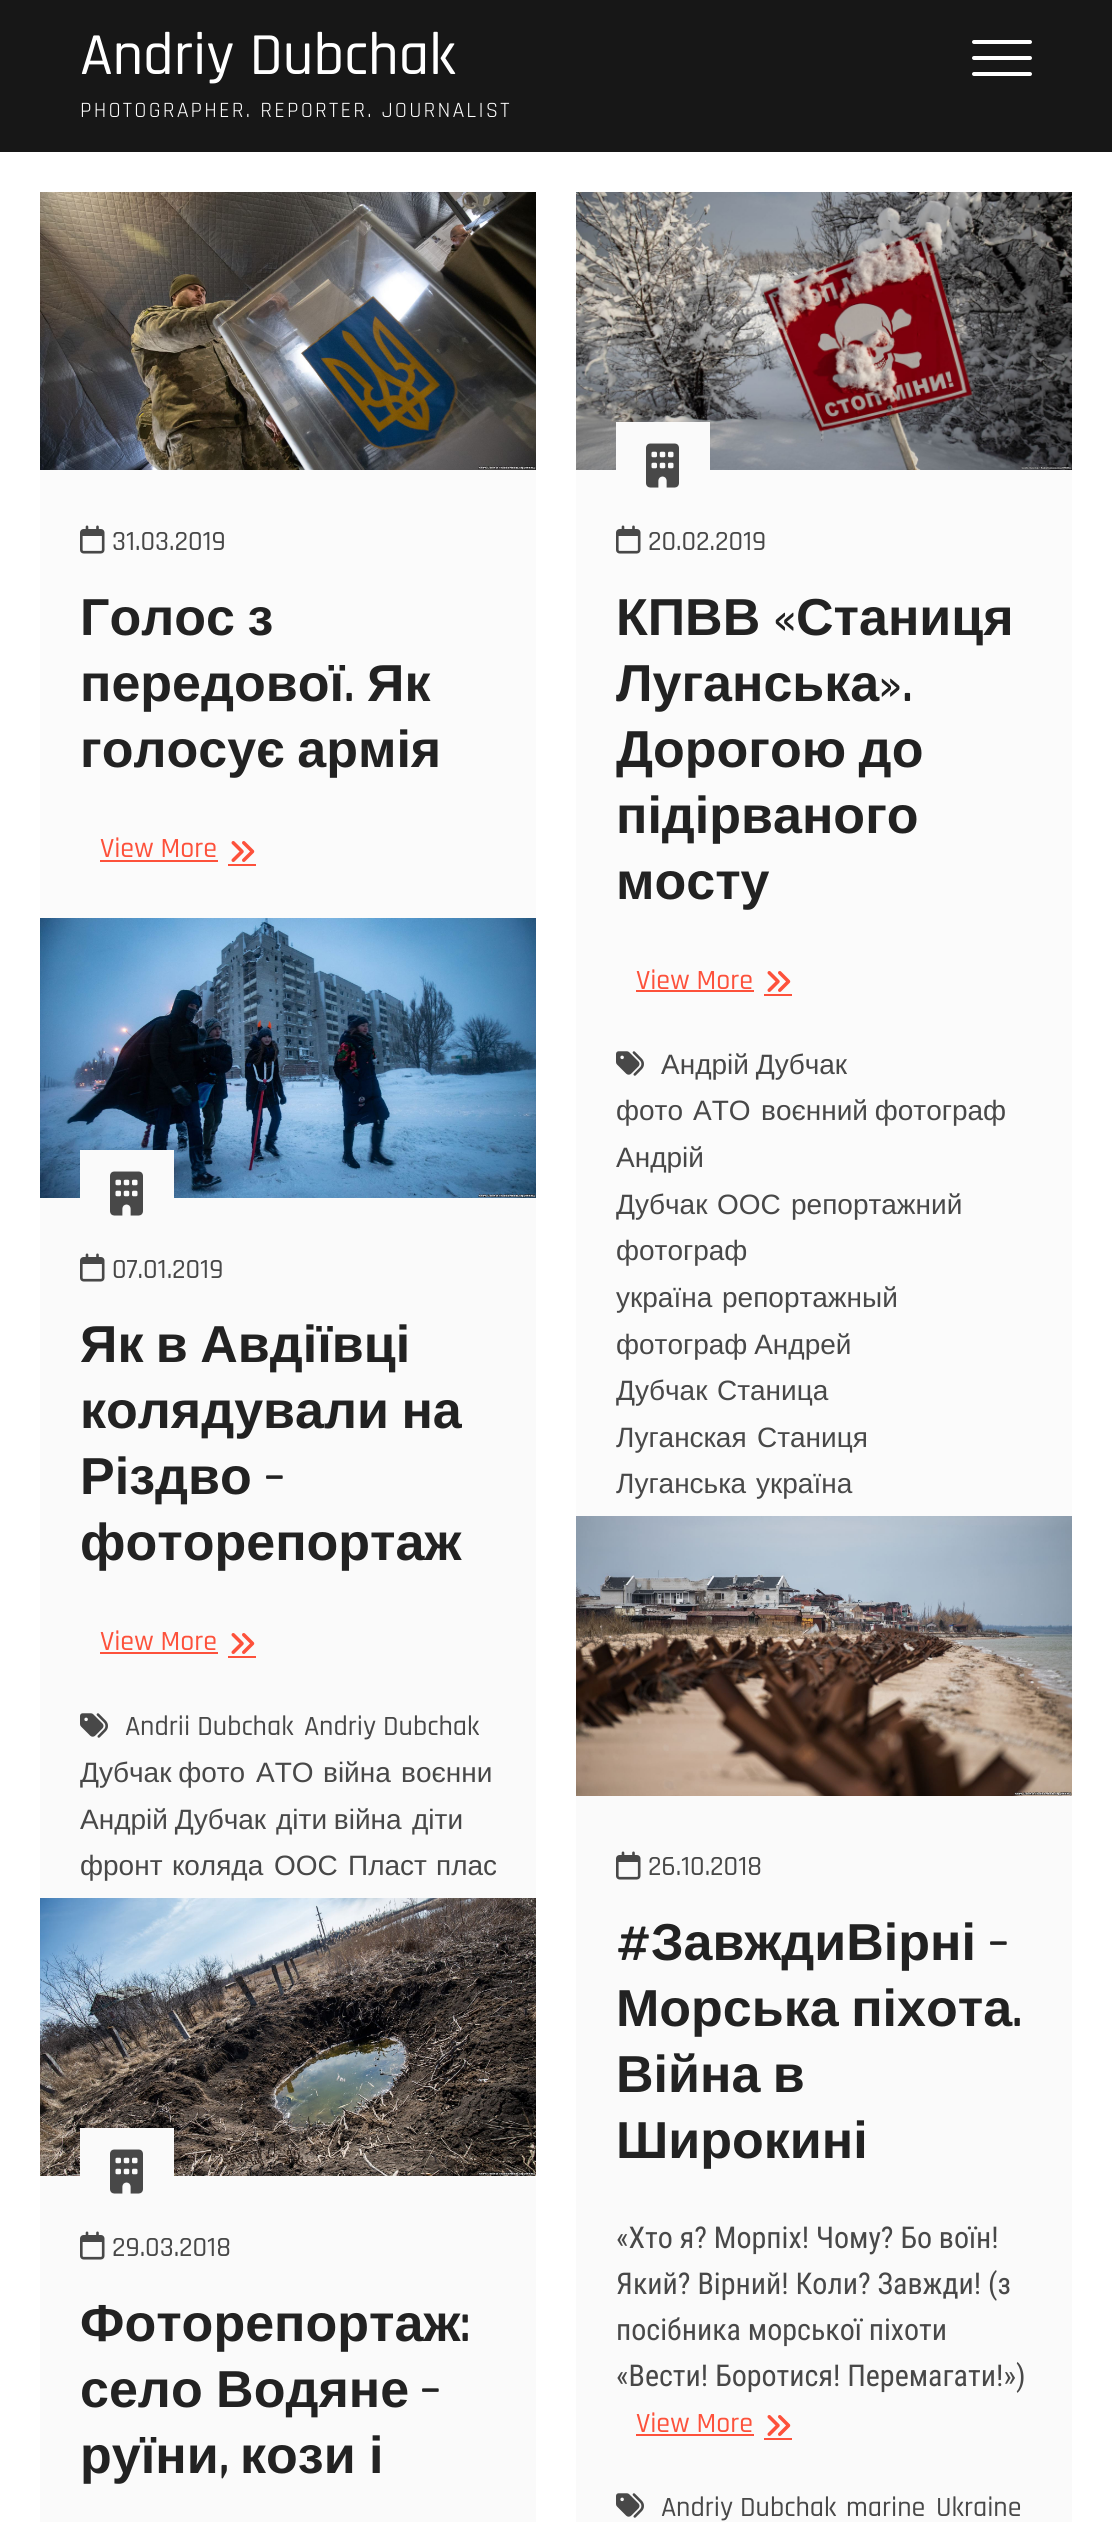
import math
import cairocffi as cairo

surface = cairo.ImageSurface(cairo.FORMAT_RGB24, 1112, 2522)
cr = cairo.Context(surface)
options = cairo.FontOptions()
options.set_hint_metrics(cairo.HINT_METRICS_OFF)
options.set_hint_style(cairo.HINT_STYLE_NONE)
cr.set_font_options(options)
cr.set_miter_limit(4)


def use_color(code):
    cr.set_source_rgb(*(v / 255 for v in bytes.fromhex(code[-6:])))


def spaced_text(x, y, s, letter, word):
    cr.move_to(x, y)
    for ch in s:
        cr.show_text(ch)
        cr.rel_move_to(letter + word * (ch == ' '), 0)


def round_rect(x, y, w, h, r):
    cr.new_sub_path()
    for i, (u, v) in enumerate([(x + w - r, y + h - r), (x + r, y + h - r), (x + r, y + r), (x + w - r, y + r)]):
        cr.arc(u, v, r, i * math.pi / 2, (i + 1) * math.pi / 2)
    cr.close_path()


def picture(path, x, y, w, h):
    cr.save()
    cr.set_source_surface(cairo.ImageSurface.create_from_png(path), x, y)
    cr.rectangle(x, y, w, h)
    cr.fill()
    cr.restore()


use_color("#ffffff")
cr.paint()
use_color("#fafafa")
cr.rectangle(40, 2176, 496, 346)
cr.fill()
cr.rectangle(576, 1796, 496, 726)
cr.fill()
cr.rectangle(40, 1198, 496, 700)
cr.fill()
use_color("#171717")
cr.rectangle(0, 0, 1112, 152)
cr.fill()
cr.select_font_face("Rajdhani Medium")
cr.set_font_size(60)
use_color("#ffffff")
cr.move_to(80, 74)
cr.show_text("Andriy Dubchak")
cr.select_font_face("Rajdhani")
cr.set_font_size(22)
spaced_text(80, 117, "PHOTOGRAPHER. REPORTER. JOURNALIST", 2.2, 0)
round_rect(972, 56, 60, 4, 2)
cr.fill()
round_rect(972, 40, 60, 4, 2)
cr.fill()
round_rect(972, 72, 60, 4, 2)
cr.fill()
use_color("#fbfbfb")
cr.rectangle(40, 470, 496, 448)
cr.fill()
picture("img1.png", 40, 192, 496, 278)
picture("img2.png", 80, 525, 25, 29)
cr.select_font_face("Rajdhani Medium")
cr.set_font_size(28)
use_color("#484848")
cr.move_to(112, 550)
cr.show_text("31.03.2019")
cr.select_font_face("Liberation Sans", cairo.FONT_SLANT_NORMAL, cairo.FONT_WEIGHT_BOLD)
cr.set_font_size(52)
use_color("#222222")
spaced_text(80, 635, "Голос з", 0, -2)
cr.move_to(80, 701)
cr.show_text("передової")
cr.select_font_face("Rajdhani SemiBold")
cr.move_to(344, 701)
cr.show_text(".")
cr.select_font_face("Liberation Sans", cairo.FONT_SLANT_NORMAL, cairo.FONT_WEIGHT_BOLD)
cr.move_to(367, 701)
cr.show_text("Як")
spaced_text(80, 767, "голосує армія", 0, -2)
cr.select_font_face("Rajdhani Medium")
cr.set_font_size(28)
use_color("#fd513b")
cr.move_to(100, 857)
cr.show_text("View More")
cr.rectangle(100, 860, 118, 2)
cr.fill()
picture("img3.png", 231, 841, 24, 21)
cr.rectangle(228, 864, 28, 2)
cr.fill()
use_color("#fbfbfb")
cr.rectangle(576, 470, 496, 1046)
cr.fill()
picture("img4.png", 576, 192, 496, 278)
use_color("#fafafa")
cr.rectangle(616, 422, 94, 48)
cr.fill()
picture("img5.png", 646, 443, 33, 45)
picture("img2.png", 616, 525, 25, 29)
use_color("#484848")
cr.move_to(648, 550)
cr.show_text("20.02.2019")
cr.select_font_face("Liberation Sans", cairo.FONT_SLANT_NORMAL, cairo.FONT_WEIGHT_BOLD)
cr.set_font_size(52)
use_color("#222222")
cr.move_to(616, 635)
cr.show_text("КПВВ")
cr.select_font_face("Rajdhani SemiBold")
cr.move_to(773, 635)
cr.show_text("«")
cr.select_font_face("Liberation Sans", cairo.FONT_SLANT_NORMAL, cairo.FONT_WEIGHT_BOLD)
cr.move_to(796, 635)
cr.show_text("Станиця")
cr.move_to(616, 701)
cr.show_text("Луганська")
cr.select_font_face("Rajdhani SemiBold")
cr.move_to(879, 701)
cr.show_text("».")
cr.select_font_face("Liberation Sans", cairo.FONT_SLANT_NORMAL, cairo.FONT_WEIGHT_BOLD)
spaced_text(616, 767, "Дорогою до", 0, -2)
cr.move_to(616, 833)
cr.show_text("підірваного")
cr.move_to(616, 899)
cr.show_text("мосту")
cr.select_font_face("Rajdhani Medium")
cr.set_font_size(28)
use_color("#fd513b")
cr.move_to(636, 989)
cr.show_text("View More")
cr.rectangle(636, 990, 118, 2)
cr.fill()
picture("img3.png", 767, 971, 24, 21)
cr.rectangle(764, 994, 28, 2)
cr.fill()
picture("img6.png", 616, 1051, 28, 25)
cr.select_font_face("Liberation Sans")
use_color("#484848")
spaced_text(661, 1074, "Андрій Дубчак", 0, -1)
cr.move_to(616, 1120)
cr.show_text("фото")
cr.move_to(693, 1120)
cr.show_text("АТО")
spaced_text(761, 1120, "воєнний фотограф", 0, -1)
cr.move_to(616, 1167)
cr.show_text("Андрій")
cr.move_to(616, 1214)
cr.show_text("Дубчак")
cr.move_to(717, 1214)
cr.show_text("ООС")
cr.move_to(791, 1214)
cr.show_text("репортажний")
cr.move_to(616, 1260)
cr.show_text("фотограф")
cr.move_to(616, 1307)
cr.show_text("україна")
cr.move_to(722, 1307)
cr.show_text("репортажный")
spaced_text(616, 1354, "фотограф Андрей", 0, -1)
cr.move_to(616, 1400)
cr.show_text("Дубчак")
cr.move_to(717, 1400)
cr.show_text("Станица")
cr.move_to(616, 1447)
cr.show_text("Луганская")
cr.move_to(757, 1447)
cr.show_text("Станиця")
cr.move_to(616, 1493)
cr.show_text("Луганська")
cr.move_to(756, 1493)
cr.show_text("україна")
picture("img7.png", 40, 918, 496, 280)
use_color("#fafafa")
cr.rectangle(80, 1150, 94, 48)
cr.fill()
picture("img5.png", 110, 1171, 33, 45)
picture("img8.png", 80, 1253, 25, 29)
cr.select_font_face("Rajdhani Medium")
use_color("#484848")
cr.move_to(112, 1278)
cr.show_text("07.01.2019")
cr.select_font_face("Liberation Sans", cairo.FONT_SLANT_NORMAL, cairo.FONT_WEIGHT_BOLD)
cr.set_font_size(52)
use_color("#222222")
spaced_text(80, 1362, "Як в Авдіївці", 0, -2)
spaced_text(80, 1428, "колядували на", 0, -2)
cr.move_to(80, 1494)
cr.show_text("Різдво")
cr.select_font_face("Rajdhani SemiBold")
cr.move_to(264, 1494)
cr.show_text("–")
cr.select_font_face("Liberation Sans", cairo.FONT_SLANT_NORMAL, cairo.FONT_WEIGHT_BOLD)
cr.move_to(80, 1560)
cr.show_text("фоторепортаж")
cr.select_font_face("Rajdhani Medium")
cr.set_font_size(28)
use_color("#fd513b")
cr.move_to(100, 1650)
cr.show_text("View More")
cr.rectangle(100, 1652, 118, 2)
cr.fill()
picture("img9.png", 231, 1633, 24, 21)
cr.rectangle(228, 1656, 28, 2)
cr.fill()
picture("img10.png", 80, 1713, 28, 25)
use_color("#484848")
cr.move_to(125, 1735)
cr.show_text("Andrii Dubchak")
cr.move_to(304, 1735)
cr.show_text("Andriy Dubchak")
cr.select_font_face("Liberation Sans")
spaced_text(80, 1782, "Дубчак фото", 0, -1)
cr.move_to(256, 1782)
cr.show_text("АТО")
cr.move_to(323, 1782)
cr.show_text("війна")
spaced_text(401, 1782, "воєнни", 0, -1)
spaced_text(80, 1829, "Андрій Дубчак", 0, -1)
spaced_text(276, 1829, "діти війна", 0, -1)
cr.move_to(412, 1829)
cr.show_text("діти")
cr.move_to(80, 1875)
cr.show_text("фронт")
cr.move_to(172, 1875)
cr.show_text("коляда")
cr.move_to(274, 1875)
cr.show_text("ООС")
cr.move_to(348, 1875)
cr.show_text("Пласт")
cr.save()
cr.rectangle(80, 1706, 416, 252)
cr.clip()
cr.move_to(436, 1875)
cr.show_text("плас")
cr.restore()
picture("img11.png", 40, 1898, 496, 278)
use_color("#fafafa")
cr.rectangle(80, 2128, 94, 48)
cr.fill()
picture("img5.png", 110, 2149, 33, 45)
picture("img8.png", 80, 2231, 25, 29)
cr.select_font_face("Rajdhani Medium")
use_color("#484848")
cr.move_to(112, 2256)
cr.show_text("29.03.2018")
cr.select_font_face("Liberation Sans", cairo.FONT_SLANT_NORMAL, cairo.FONT_WEIGHT_BOLD)
cr.set_font_size(52)
use_color("#222222")
cr.move_to(80, 2341)
cr.show_text("Фоторепортаж")
cr.select_font_face("Rajdhani SemiBold")
cr.move_to(460, 2341)
cr.show_text(":")
cr.select_font_face("Liberation Sans", cairo.FONT_SLANT_NORMAL, cairo.FONT_WEIGHT_BOLD)
spaced_text(80, 2407, "село Водяне", 0, -1)
cr.select_font_face("Rajdhani SemiBold")
cr.move_to(420, 2407)
cr.show_text("–")
cr.select_font_face("Liberation Sans", cairo.FONT_SLANT_NORMAL, cairo.FONT_WEIGHT_BOLD)
cr.move_to(80, 2473)
cr.show_text("руїни")
cr.select_font_face("Rajdhani SemiBold")
cr.move_to(219, 2473)
cr.show_text(",")
cr.select_font_face("Liberation Sans", cairo.FONT_SLANT_NORMAL, cairo.FONT_WEIGHT_BOLD)
spaced_text(240, 2473, "кози і", 0, -1)
picture("img12.png", 576, 1516, 496, 280)
picture("img8.png", 616, 1851, 25, 29)
cr.select_font_face("Rajdhani Medium")
cr.set_font_size(28)
use_color("#484848")
cr.move_to(648, 1875)
cr.show_text("26.10.2018")
cr.select_font_face("Rajdhani SemiBold")
cr.set_font_size(52)
use_color("#222222")
cr.move_to(616, 1960)
cr.show_text("#")
cr.select_font_face("Liberation Sans", cairo.FONT_SLANT_NORMAL, cairo.FONT_WEIGHT_BOLD)
cr.move_to(651, 1960)
cr.show_text("ЗавждиВірні")
cr.select_font_face("Rajdhani SemiBold")
cr.move_to(988, 1960)
cr.show_text("–")
cr.select_font_face("Liberation Sans", cairo.FONT_SLANT_NORMAL, cairo.FONT_WEIGHT_BOLD)
spaced_text(616, 2026, "Морська піхота", 0, -2)
cr.select_font_face("Rajdhani SemiBold")
cr.move_to(1012, 2026)
cr.show_text(".")
cr.select_font_face("Liberation Sans", cairo.FONT_SLANT_NORMAL, cairo.FONT_WEIGHT_BOLD)
spaced_text(616, 2092, "Війна в", 0, -2)
cr.move_to(616, 2158)
cr.show_text("Широкині")
cr.select_font_face("Roboto Condensed")
cr.set_font_size(30)
use_color("#484848")
cr.move_to(616, 2248)
cr.show_text("«Хто я? Морпіх! Чому? Бо воїн!")
cr.move_to(616, 2294)
cr.show_text("Який? Вірний! Коли? Завжди! (з")
cr.move_to(616, 2340)
cr.show_text("посібника морської піхоти")
cr.move_to(616, 2386)
cr.show_text("«Вести! Боротися! Перемагати!»)")
cr.select_font_face("Rajdhani Medium")
cr.set_font_size(28)
use_color("#fd513b")
cr.move_to(636, 2432)
cr.show_text("View More")
cr.rectangle(636, 2434, 118, 2)
cr.fill()
picture("img9.png", 767, 2415, 24, 21)
cr.rectangle(764, 2438, 28, 2)
cr.fill()
picture("img10.png", 616, 2493, 28, 25)
use_color("#484848")
cr.move_to(661, 2516)
cr.show_text("Andriy Dubchak")
cr.move_to(846, 2516)
cr.show_text("marine")
cr.move_to(936, 2516)
cr.show_text("Ukraine")
surface.write_to_png("result.png")
